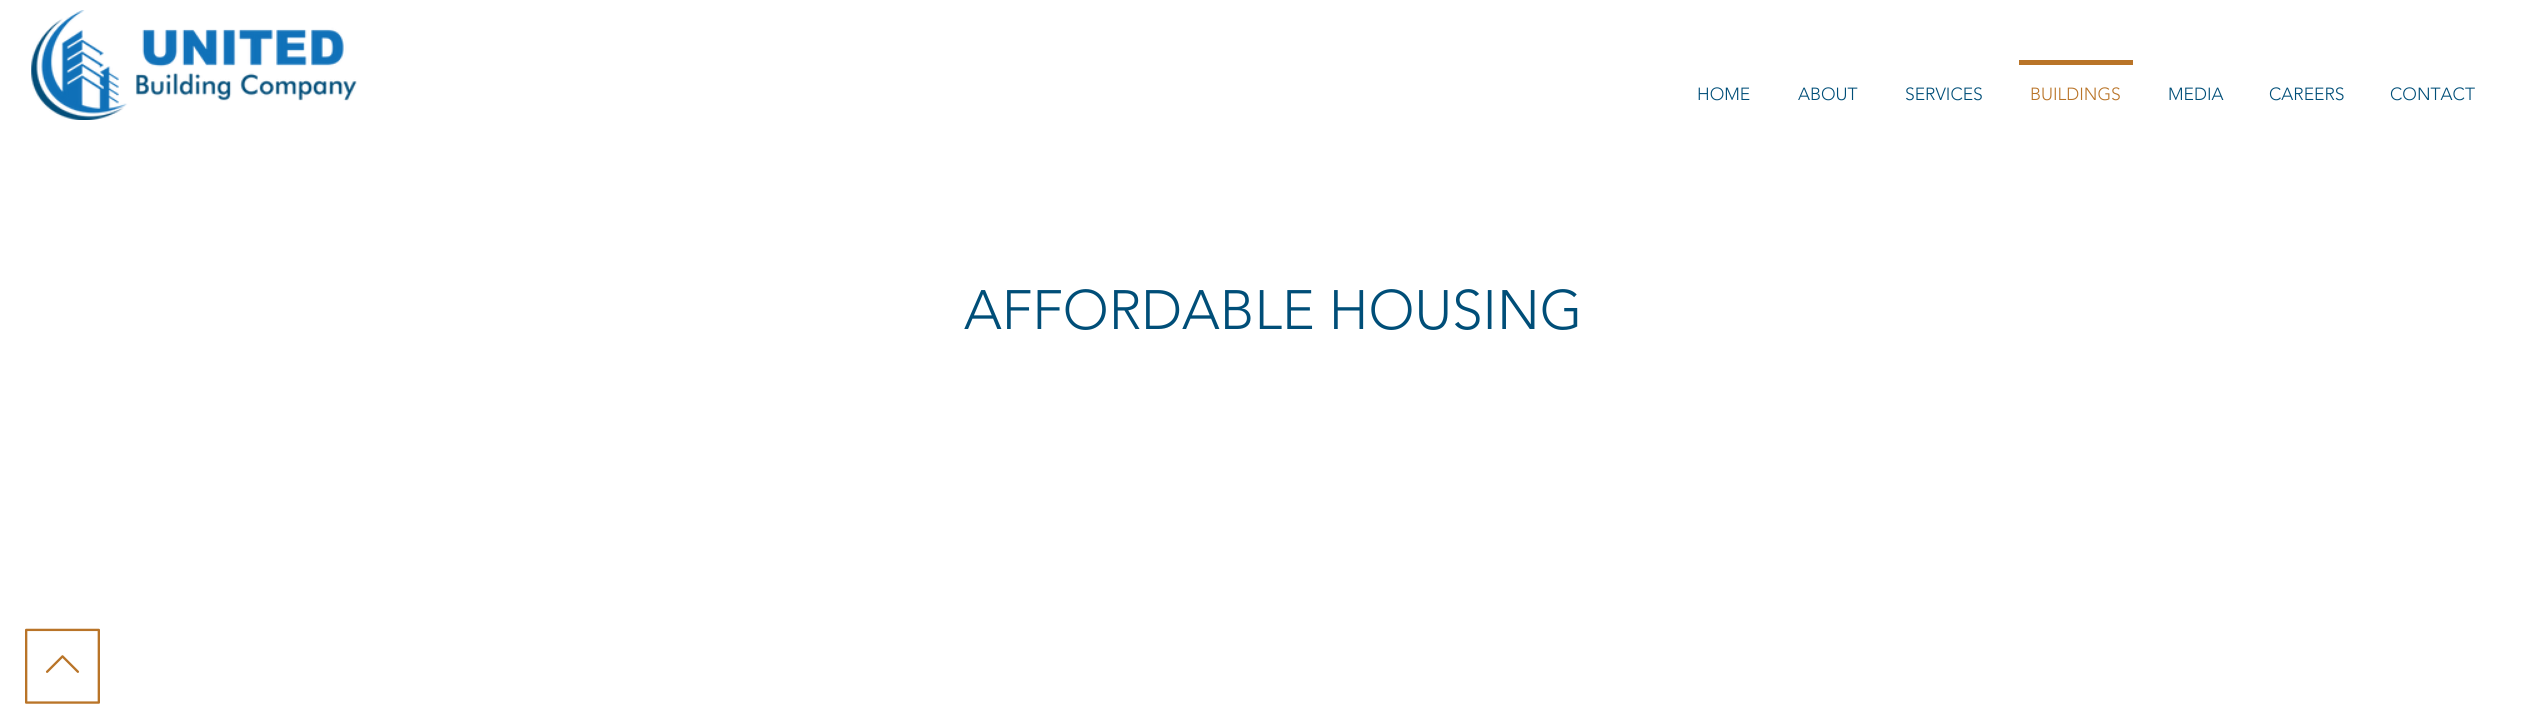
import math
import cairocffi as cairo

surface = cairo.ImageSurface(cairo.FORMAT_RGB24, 2547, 728)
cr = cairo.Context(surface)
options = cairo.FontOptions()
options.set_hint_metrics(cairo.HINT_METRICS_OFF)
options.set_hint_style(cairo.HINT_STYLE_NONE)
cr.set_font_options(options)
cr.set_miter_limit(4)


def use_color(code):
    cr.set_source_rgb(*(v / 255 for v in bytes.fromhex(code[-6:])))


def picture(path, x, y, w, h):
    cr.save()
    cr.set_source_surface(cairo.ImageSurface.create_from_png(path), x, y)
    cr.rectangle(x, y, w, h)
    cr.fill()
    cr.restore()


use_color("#ffffff")
cr.paint()
picture("img1.png", 31, 10, 326, 110)
cr.select_font_face("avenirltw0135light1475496 Light")
cr.set_font_size(17.5)
use_color("#004e78")
cr.move_to(1697, 100)
cr.show_text("HOME")
cr.move_to(1798, 100)
cr.show_text("ABOUT")
cr.move_to(1905, 100)
cr.show_text("SERVICES")
use_color("#b97428")
cr.rectangle(2019, 60, 114, 5)
cr.fill()
cr.move_to(2030, 100)
cr.show_text("BUILDINGS")
use_color("#004e78")
cr.move_to(2168, 100)
cr.show_text("MEDIA")
cr.move_to(2269, 100)
cr.show_text("CAREERS")
cr.move_to(2390, 100)
cr.show_text("CONTACT")
cr.set_font_size(55)
cr.move_to(964, 329)
cr.show_text("AFFORDABLE HOUSING")
picture("img2.png", 25, 628, 75, 76)
surface.write_to_png("result.png")
